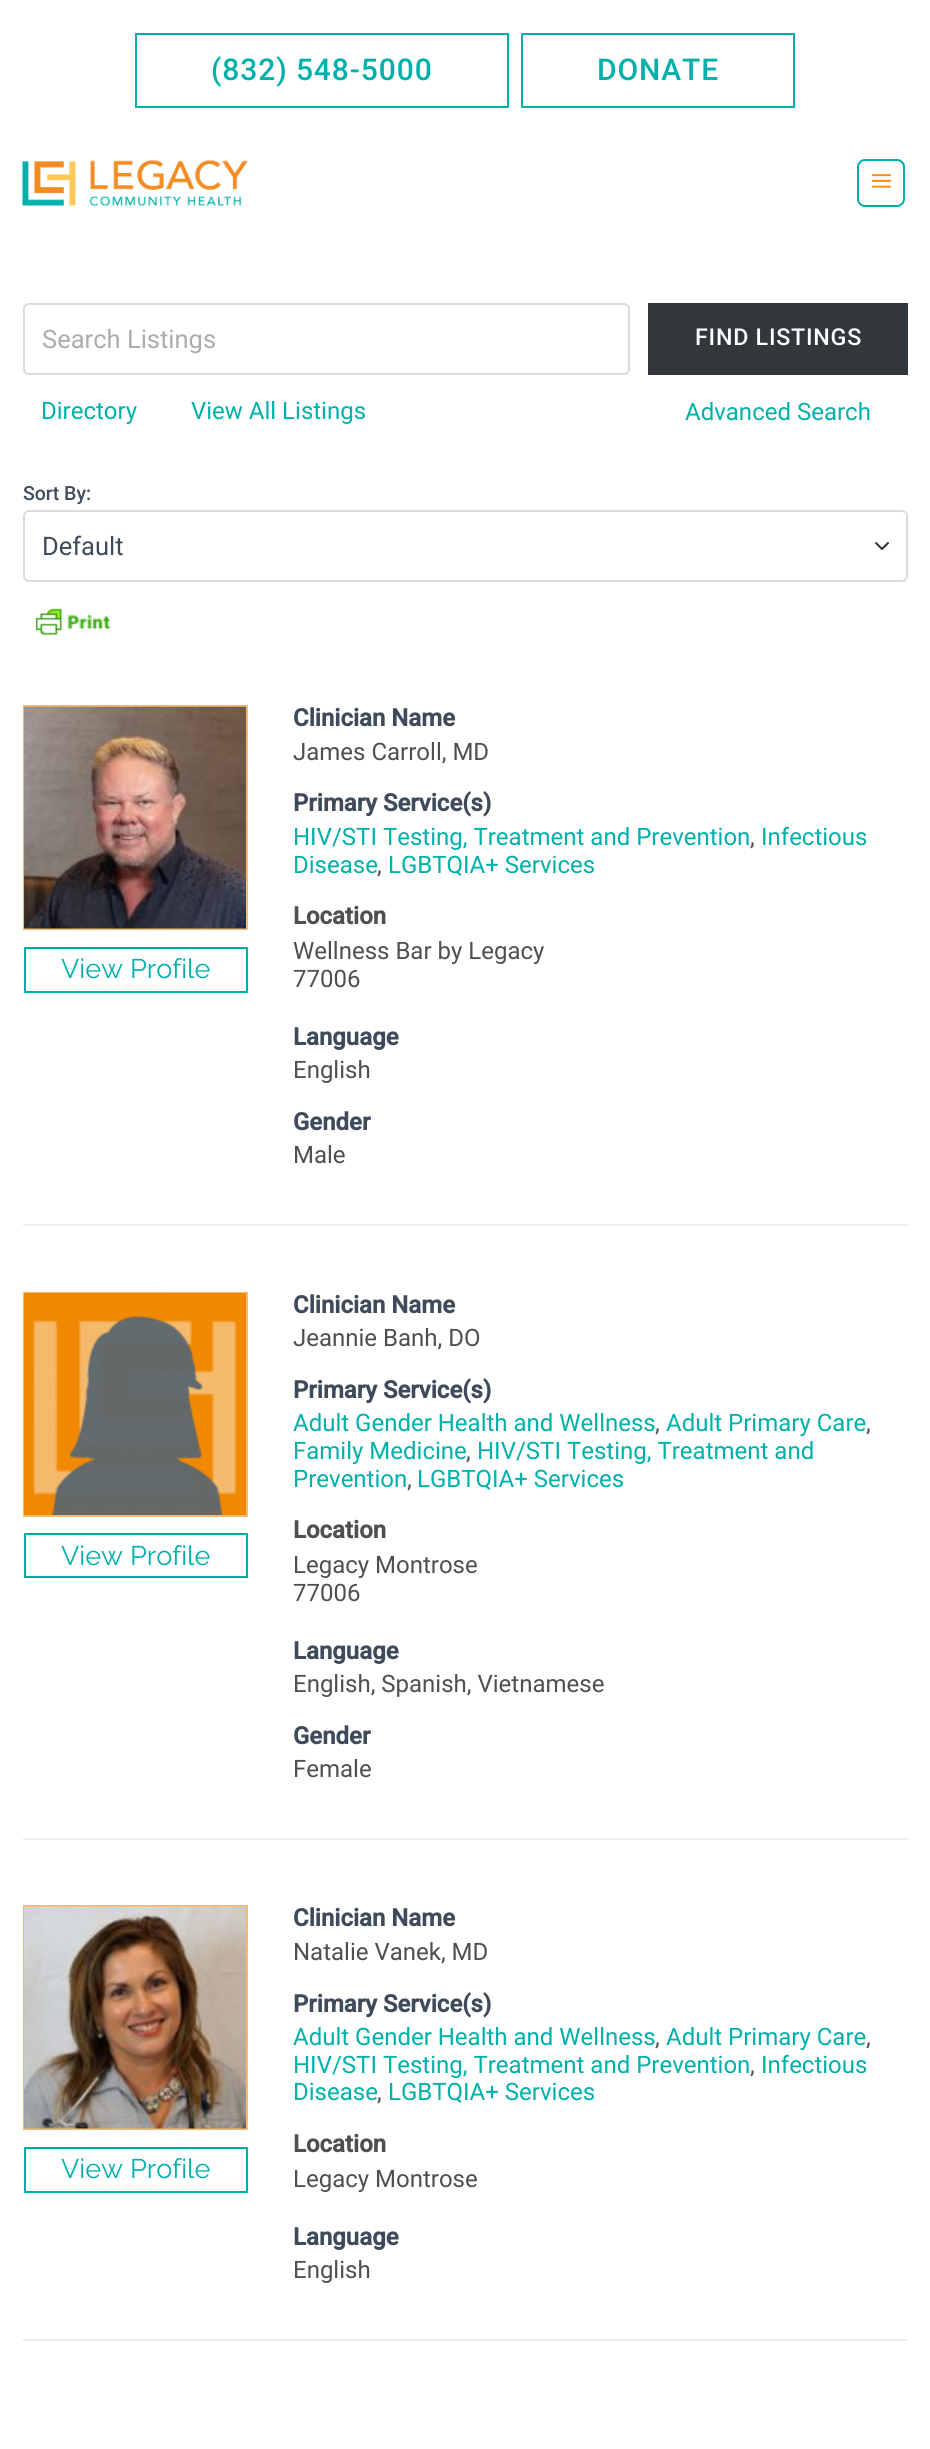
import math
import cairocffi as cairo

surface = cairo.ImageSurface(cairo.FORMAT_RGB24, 930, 2449)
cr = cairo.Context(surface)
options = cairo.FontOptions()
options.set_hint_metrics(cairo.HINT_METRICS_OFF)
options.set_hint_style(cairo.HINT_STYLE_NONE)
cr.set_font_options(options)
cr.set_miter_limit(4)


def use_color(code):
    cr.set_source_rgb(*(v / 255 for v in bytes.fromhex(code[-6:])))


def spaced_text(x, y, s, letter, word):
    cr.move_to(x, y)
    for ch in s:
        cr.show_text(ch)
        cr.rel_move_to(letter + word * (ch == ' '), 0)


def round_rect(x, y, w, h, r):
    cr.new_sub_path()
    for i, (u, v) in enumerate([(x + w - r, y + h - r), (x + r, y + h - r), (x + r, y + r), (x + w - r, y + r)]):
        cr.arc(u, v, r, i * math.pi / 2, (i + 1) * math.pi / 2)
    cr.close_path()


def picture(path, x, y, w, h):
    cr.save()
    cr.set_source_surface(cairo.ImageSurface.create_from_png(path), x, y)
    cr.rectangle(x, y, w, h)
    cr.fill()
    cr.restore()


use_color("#ffffff")
cr.paint()
cr.rectangle(136, 34, 372, 73)
use_color("#00afaa")
cr.stroke()
cr.select_font_face("Roboto Medium")
cr.set_font_size(30)
use_color("#00b0ab")
spaced_text(211, 80, "(832) 548-5000", 0.9, 0)
cr.rectangle(522, 34, 272, 73)
use_color("#00afaa")
cr.stroke()
use_color("#00b0ab")
spaced_text(597, 80, "DONATE", 0.9, 0)
picture("img1.png", 22, 160, 226, 46)
round_rect(858, 160, 46, 46, 7)
use_color("#00afaa")
cr.stroke()
picture("img2.png", 871, 174, 21, 14)
round_rect(24, 304, 605, 70, 5)
use_color("#d9dbde")
cr.stroke()
cr.select_font_face("Roboto")
cr.set_font_size(25.5)
use_color("#acacac")
cr.move_to(42, 348)
cr.show_text("Search Listings")
use_color("#32373c")
cr.rectangle(648, 303, 260, 72)
cr.fill()
cr.select_font_face("Roboto Medium")
cr.set_font_size(23.25)
use_color("#ffffff")
spaced_text(695, 345, "FIND LISTINGS", 0.75, 0)
cr.select_font_face("Roboto")
cr.set_font_size(24)
use_color("#00b0ab")
cr.move_to(685, 420)
cr.show_text("Advanced Search")
cr.move_to(41, 419)
cr.show_text("Directory")
cr.move_to(191, 419)
cr.show_text("View All Listings")
cr.select_font_face("Roboto Medium")
cr.set_font_size(19.5)
use_color("#3f4b5b")
cr.move_to(23, 500)
cr.show_text("Sort By:")
cr.new_path()
cr.move_to(876, 543)
cr.line_to(882, 549)
cr.line_to(888, 543)
use_color("#333333")
cr.set_line_cap(cairo.LINE_CAP_ROUND)
cr.set_line_join(cairo.LINE_JOIN_ROUND)
cr.stroke()
round_rect(24, 511, 883, 70, 5)
use_color("#d9dbde")
cr.set_line_cap(cairo.LINE_CAP_BUTT)
cr.set_line_join(cairo.LINE_JOIN_MITER)
cr.stroke()
cr.select_font_face("Roboto")
cr.set_font_size(25.5)
use_color("#3f4b5b")
cr.move_to(42, 555)
cr.show_text("Default")
picture("img3.png", 35, 608, 75, 27)
use_color("#eeeeee")
cr.rectangle(23, 1224, 885, 2)
cr.fill()
cr.rectangle(24, 706, 223, 223)
use_color("#f6ba6d")
cr.stroke()
picture("img4.png", 24, 706, 222, 223)
cr.rectangle(25, 948, 222, 44)
use_color("#00aea9")
cr.stroke()
cr.select_font_face("Raleway")
cr.set_font_size(27)
use_color("#00b0ab")
cr.move_to(61, 978)
cr.show_text("View Profile")
cr.select_font_face("Roboto", cairo.FONT_SLANT_NORMAL, cairo.FONT_WEIGHT_BOLD)
cr.set_font_size(24)
use_color("#3f4b5b")
cr.move_to(293, 726)
cr.show_text("Clinician Name")
cr.select_font_face("Roboto")
use_color("#4f4f4f")
cr.move_to(293, 760)
cr.show_text("James Carroll, MD")
cr.select_font_face("Roboto", cairo.FONT_SLANT_NORMAL, cairo.FONT_WEIGHT_BOLD)
use_color("#3f4b5b")
cr.move_to(293, 811)
cr.show_text("Primary Service(s)")
cr.select_font_face("Roboto")
use_color("#00b0ab")
cr.move_to(293, 845)
cr.show_text("HIV/STI Testing, Treatment and Prevention")
use_color("#4f4f4f")
cr.move_to(750, 845)
cr.show_text(",")
use_color("#00b0ab")
cr.move_to(761, 845)
cr.show_text("Infectious")
cr.move_to(293, 873)
cr.show_text("Disease")
use_color("#4f4f4f")
cr.move_to(377, 873)
cr.show_text(",")
use_color("#00b0ab")
cr.move_to(388, 873)
cr.show_text("LGBTQIA+ Services")
cr.select_font_face("Roboto", cairo.FONT_SLANT_NORMAL, cairo.FONT_WEIGHT_BOLD)
use_color("#4f4f4f")
cr.move_to(293, 924)
cr.show_text("Location")
cr.select_font_face("Roboto")
cr.move_to(293, 959)
cr.show_text("Wellness Bar by Legacy")
cr.move_to(293, 987)
cr.show_text("77006")
cr.select_font_face("Roboto", cairo.FONT_SLANT_NORMAL, cairo.FONT_WEIGHT_BOLD)
use_color("#3f4b5b")
cr.move_to(293, 1045)
cr.show_text("Language")
cr.select_font_face("Roboto")
use_color("#4f4f4f")
cr.move_to(293, 1078)
cr.show_text("English")
cr.select_font_face("Roboto", cairo.FONT_SLANT_NORMAL, cairo.FONT_WEIGHT_BOLD)
use_color("#3f4b5b")
cr.move_to(293, 1130)
cr.show_text("Gender")
cr.select_font_face("Roboto")
use_color("#4f4f4f")
cr.move_to(293, 1163)
cr.show_text("Male")
use_color("#eeeeee")
cr.rectangle(23, 1838, 885, 2)
cr.fill()
cr.rectangle(24, 1293, 223, 223)
use_color("#f6ba6d")
cr.stroke()
picture("img5.png", 24, 1293, 222, 222)
cr.rectangle(25, 1534, 222, 43)
use_color("#00aea9")
cr.stroke()
cr.select_font_face("Raleway")
cr.set_font_size(27)
use_color("#00b0ab")
cr.move_to(61, 1565)
cr.show_text("View Profile")
cr.select_font_face("Roboto", cairo.FONT_SLANT_NORMAL, cairo.FONT_WEIGHT_BOLD)
cr.set_font_size(24)
use_color("#3f4b5b")
cr.move_to(293, 1313)
cr.show_text("Clinician Name")
cr.select_font_face("Roboto")
use_color("#4f4f4f")
cr.move_to(293, 1346)
cr.show_text("Jeannie Banh, DO")
cr.select_font_face("Roboto", cairo.FONT_SLANT_NORMAL, cairo.FONT_WEIGHT_BOLD)
use_color("#3f4b5b")
cr.move_to(293, 1398)
cr.show_text("Primary Service(s)")
cr.select_font_face("Roboto")
use_color("#00b0ab")
cr.move_to(293, 1431)
cr.show_text("Adult Gender Health and Wellness")
use_color("#4f4f4f")
cr.move_to(655, 1431)
cr.show_text(",")
use_color("#00b0ab")
cr.move_to(666, 1431)
cr.show_text("Adult Primary Care")
use_color("#4f4f4f")
cr.move_to(866, 1431)
cr.show_text(",")
use_color("#00b0ab")
cr.move_to(293, 1459)
cr.show_text("Family Medicine")
use_color("#4f4f4f")
cr.move_to(466, 1459)
cr.show_text(",")
use_color("#00b0ab")
cr.move_to(477, 1459)
cr.show_text("HIV/STI Testing, Treatment and")
cr.move_to(293, 1487)
cr.show_text("Prevention")
use_color("#4f4f4f")
cr.move_to(407, 1487)
cr.show_text(",")
use_color("#00b0ab")
cr.move_to(417, 1487)
cr.show_text("LGBTQIA+ Services")
cr.select_font_face("Roboto", cairo.FONT_SLANT_NORMAL, cairo.FONT_WEIGHT_BOLD)
use_color("#4f4f4f")
cr.move_to(293, 1538)
cr.show_text("Location")
cr.select_font_face("Roboto")
cr.move_to(293, 1573)
cr.show_text("Legacy Montrose")
cr.move_to(293, 1601)
cr.show_text("77006")
cr.select_font_face("Roboto", cairo.FONT_SLANT_NORMAL, cairo.FONT_WEIGHT_BOLD)
use_color("#3f4b5b")
cr.move_to(293, 1659)
cr.show_text("Language")
cr.select_font_face("Roboto")
use_color("#4f4f4f")
cr.move_to(293, 1692)
cr.show_text("English, Spanish, Vietnamese")
cr.select_font_face("Roboto", cairo.FONT_SLANT_NORMAL, cairo.FONT_WEIGHT_BOLD)
use_color("#3f4b5b")
cr.move_to(293, 1744)
cr.show_text("Gender")
cr.select_font_face("Roboto")
use_color("#4f4f4f")
cr.move_to(293, 1777)
cr.show_text("Female")
use_color("#eeeeee")
cr.rectangle(23, 2339, 885, 2)
cr.fill()
cr.rectangle(24, 1906, 223, 223)
use_color("#f6ba6d")
cr.stroke()
picture("img6.png", 24, 1906, 222, 223)
cr.rectangle(25, 2148, 222, 44)
use_color("#00aea9")
cr.stroke()
cr.select_font_face("Raleway")
cr.set_font_size(27)
use_color("#00b0ab")
cr.move_to(61, 2178)
cr.show_text("View Profile")
cr.select_font_face("Roboto", cairo.FONT_SLANT_NORMAL, cairo.FONT_WEIGHT_BOLD)
cr.set_font_size(24)
use_color("#3f4b5b")
cr.move_to(293, 1926)
cr.show_text("Clinician Name")
cr.select_font_face("Roboto")
use_color("#4f4f4f")
cr.move_to(293, 1960)
cr.show_text("Natalie Vanek, MD")
cr.select_font_face("Roboto", cairo.FONT_SLANT_NORMAL, cairo.FONT_WEIGHT_BOLD)
use_color("#3f4b5b")
cr.move_to(293, 2012)
cr.show_text("Primary Service(s)")
cr.select_font_face("Roboto")
use_color("#00b0ab")
cr.move_to(293, 2045)
cr.show_text("Adult Gender Health and Wellness")
use_color("#4f4f4f")
cr.move_to(655, 2045)
cr.show_text(",")
use_color("#00b0ab")
cr.move_to(666, 2045)
cr.show_text("Adult Primary Care")
use_color("#4f4f4f")
cr.move_to(866, 2045)
cr.show_text(",")
use_color("#00b0ab")
cr.move_to(293, 2073)
cr.show_text("HIV/STI Testing, Treatment and Prevention")
use_color("#4f4f4f")
cr.move_to(750, 2073)
cr.show_text(",")
use_color("#00b0ab")
cr.move_to(761, 2073)
cr.show_text("Infectious")
cr.move_to(293, 2100)
cr.show_text("Disease")
use_color("#4f4f4f")
cr.move_to(377, 2100)
cr.show_text(",")
use_color("#00b0ab")
cr.move_to(388, 2100)
cr.show_text("LGBTQIA+ Services")
cr.select_font_face("Roboto", cairo.FONT_SLANT_NORMAL, cairo.FONT_WEIGHT_BOLD)
use_color("#4f4f4f")
cr.move_to(293, 2152)
cr.show_text("Location")
cr.select_font_face("Roboto")
cr.move_to(293, 2187)
cr.show_text("Legacy Montrose")
cr.select_font_face("Roboto", cairo.FONT_SLANT_NORMAL, cairo.FONT_WEIGHT_BOLD)
use_color("#3f4b5b")
cr.move_to(293, 2245)
cr.show_text("Language")
cr.select_font_face("Roboto")
use_color("#4f4f4f")
cr.move_to(293, 2278)
cr.show_text("English")
surface.write_to_png("result.png")
